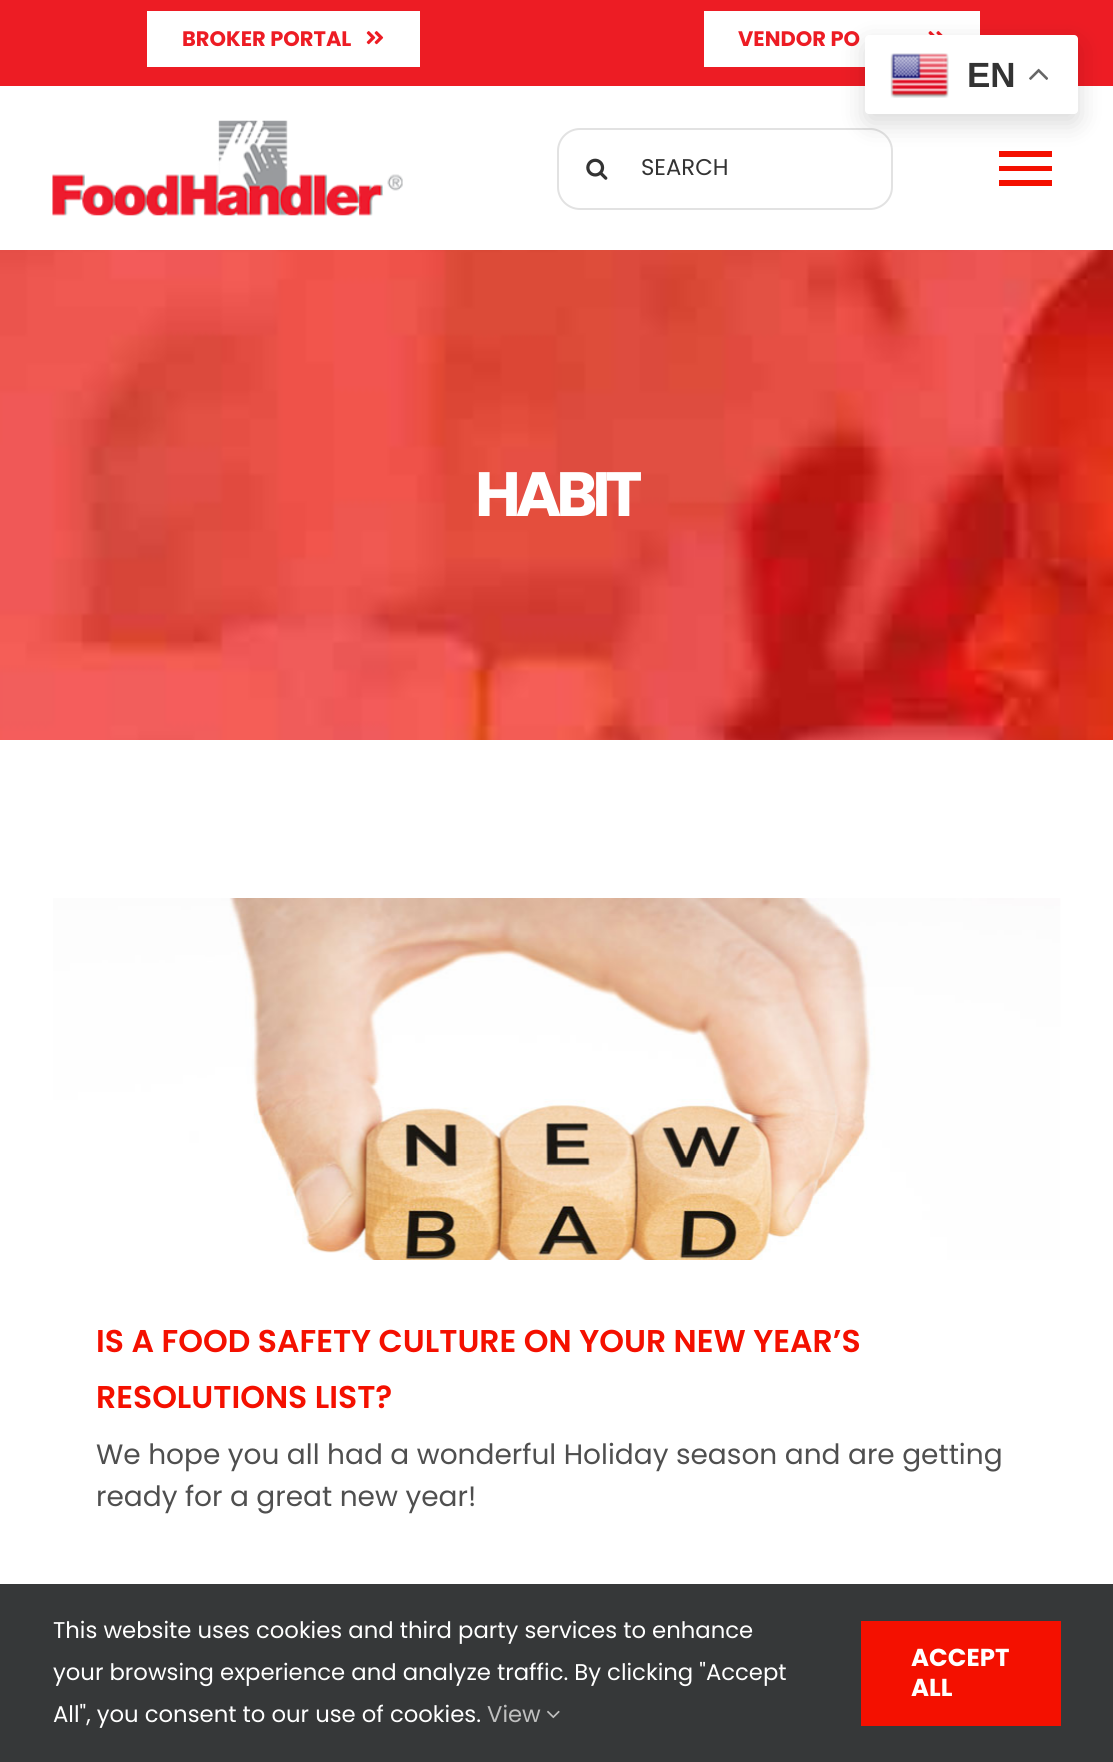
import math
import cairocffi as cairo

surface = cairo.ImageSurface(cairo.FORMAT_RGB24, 1113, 1762)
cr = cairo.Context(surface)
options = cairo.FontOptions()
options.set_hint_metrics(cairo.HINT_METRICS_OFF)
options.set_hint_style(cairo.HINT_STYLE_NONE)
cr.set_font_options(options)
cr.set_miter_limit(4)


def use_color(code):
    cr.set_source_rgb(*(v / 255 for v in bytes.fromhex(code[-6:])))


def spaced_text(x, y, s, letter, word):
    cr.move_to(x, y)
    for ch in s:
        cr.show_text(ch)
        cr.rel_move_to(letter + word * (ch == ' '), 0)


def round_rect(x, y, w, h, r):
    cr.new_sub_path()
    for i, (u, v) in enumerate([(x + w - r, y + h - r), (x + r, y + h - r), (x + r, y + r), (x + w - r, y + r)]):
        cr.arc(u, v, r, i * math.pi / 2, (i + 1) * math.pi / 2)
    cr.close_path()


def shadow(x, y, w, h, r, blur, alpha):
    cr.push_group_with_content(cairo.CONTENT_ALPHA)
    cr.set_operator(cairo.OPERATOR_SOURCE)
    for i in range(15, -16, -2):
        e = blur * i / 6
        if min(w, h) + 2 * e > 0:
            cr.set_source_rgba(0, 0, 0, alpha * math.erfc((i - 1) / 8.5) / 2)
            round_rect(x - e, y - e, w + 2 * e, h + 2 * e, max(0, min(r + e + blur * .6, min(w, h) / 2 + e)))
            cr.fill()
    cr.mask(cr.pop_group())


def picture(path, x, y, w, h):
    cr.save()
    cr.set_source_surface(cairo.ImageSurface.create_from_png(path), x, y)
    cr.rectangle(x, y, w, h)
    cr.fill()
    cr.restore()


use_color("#ffffff")
cr.paint()
use_color("#ed1c24")
cr.rectangle(0, 0, 1113, 86)
cr.fill()
use_color("#ffffff")
cr.rectangle(147, 11, 273, 56)
cr.fill()
cr.select_font_face("Poppins", cairo.FONT_SLANT_NORMAL, cairo.FONT_WEIGHT_BOLD)
cr.set_font_size(21)
use_color("#ed1c24")
cr.move_to(182, 46)
cr.show_text("BROKER PORTAL")
picture("img1.png", 366, 31, 18, 14)
use_color("#ffffff")
cr.rectangle(704, 11, 276, 56)
cr.fill()
use_color("#ed1c24")
cr.move_to(738, 46)
cr.show_text("VENDOR PO")
picture("img2.png", 928, 31, 15, 4)
picture("img3.png", 52, 120, 351, 96)
round_rect(558, 129, 334, 80, 22)
use_color("#e2e2e2")
cr.stroke()
picture("img4.png", 586, 158, 22, 22)
cr.select_font_face("Poppins")
cr.set_font_size(22.75)
use_color("#333333")
cr.move_to(641, 175)
cr.show_text("SEARCH")
use_color("#f41000")
cr.new_path()
cr.move_to(999, 151)
cr.line_to(1052, 151)
cr.line_to(1052, 157)
cr.line_to(999, 157)
cr.close_path()
cr.move_to(999, 171)
cr.line_to(999, 166)
cr.line_to(1052, 166)
cr.line_to(1052, 171)
cr.close_path()
cr.move_to(999, 186)
cr.line_to(999, 180)
cr.line_to(1052, 180)
cr.line_to(1052, 186)
cr.close_path()
cr.fill()
picture("img5.png", 0, 250, 1113, 490)
cr.select_font_face("Poppins", cairo.FONT_SLANT_NORMAL, cairo.FONT_WEIGHT_BOLD)
cr.set_font_size(62.5)
use_color("#ffffff")
spaced_text(475, 516, "HABIT", -5.25, 0)
picture("img6.png", 53, 898, 1008, 362)
cr.select_font_face("Poppins SemiBold")
cr.set_font_size(31.5)
use_color("#f41000")
cr.move_to(96, 1352)
cr.show_text("IS A FOOD SAFETY CULTURE ON YOUR NEW YEAR’S")
cr.move_to(96, 1408)
cr.show_text("RESOLUTIONS LIST?")
cr.select_font_face("Poppins")
cr.set_font_size(28)
use_color("#4f4f4f")
cr.move_to(96, 1464)
cr.show_text("We hope you all had a wonderful Holiday season and are getting")
cr.move_to(96, 1506)
cr.show_text("ready for a great new year!")
use_color("#000000")
shadow(865, 44, 213, 79, 4, 13, 0.15)
use_color("#ffffff")
round_rect(865, 35, 213, 79, 4)
cr.fill()
picture("img7.png", 890, 53, 59, 45)
cr.select_font_face("Liberation Sans", cairo.FONT_SLANT_NORMAL, cairo.FONT_WEIGHT_BOLD)
cr.set_font_size(35)
use_color("#333333")
cr.move_to(967, 87)
cr.show_text("EN")
picture("img8.png", 1029, 68, 19, 12)
use_color("#363839")
cr.rectangle(0, 1584, 1113, 178)
cr.fill()
cr.select_font_face("Poppins")
cr.set_font_size(22.75)
use_color("#ffffff")
cr.move_to(53, 1638)
cr.show_text("This website uses cookies and third party services to enhance")
cr.move_to(53, 1680)
cr.show_text("your browsing experience and analyze traffic. By clicking \"Accept")
cr.move_to(53, 1722)
cr.show_text("All\", you consent to our use of cookies.")
use_color("#bfbfbf")
cr.move_to(487, 1722)
cr.show_text("View")
picture("img9.png", 547, 1710, 13, 9)
use_color("#f41000")
cr.rectangle(861, 1621, 200, 105)
cr.fill()
cr.select_font_face("Poppins", cairo.FONT_SLANT_NORMAL, cairo.FONT_WEIGHT_BOLD)
cr.set_font_size(24.5)
use_color("#ffffff")
cr.move_to(911, 1666)
cr.show_text("ACCEPT")
cr.move_to(911, 1696)
cr.show_text("ALL")
surface.write_to_png("result.png")
